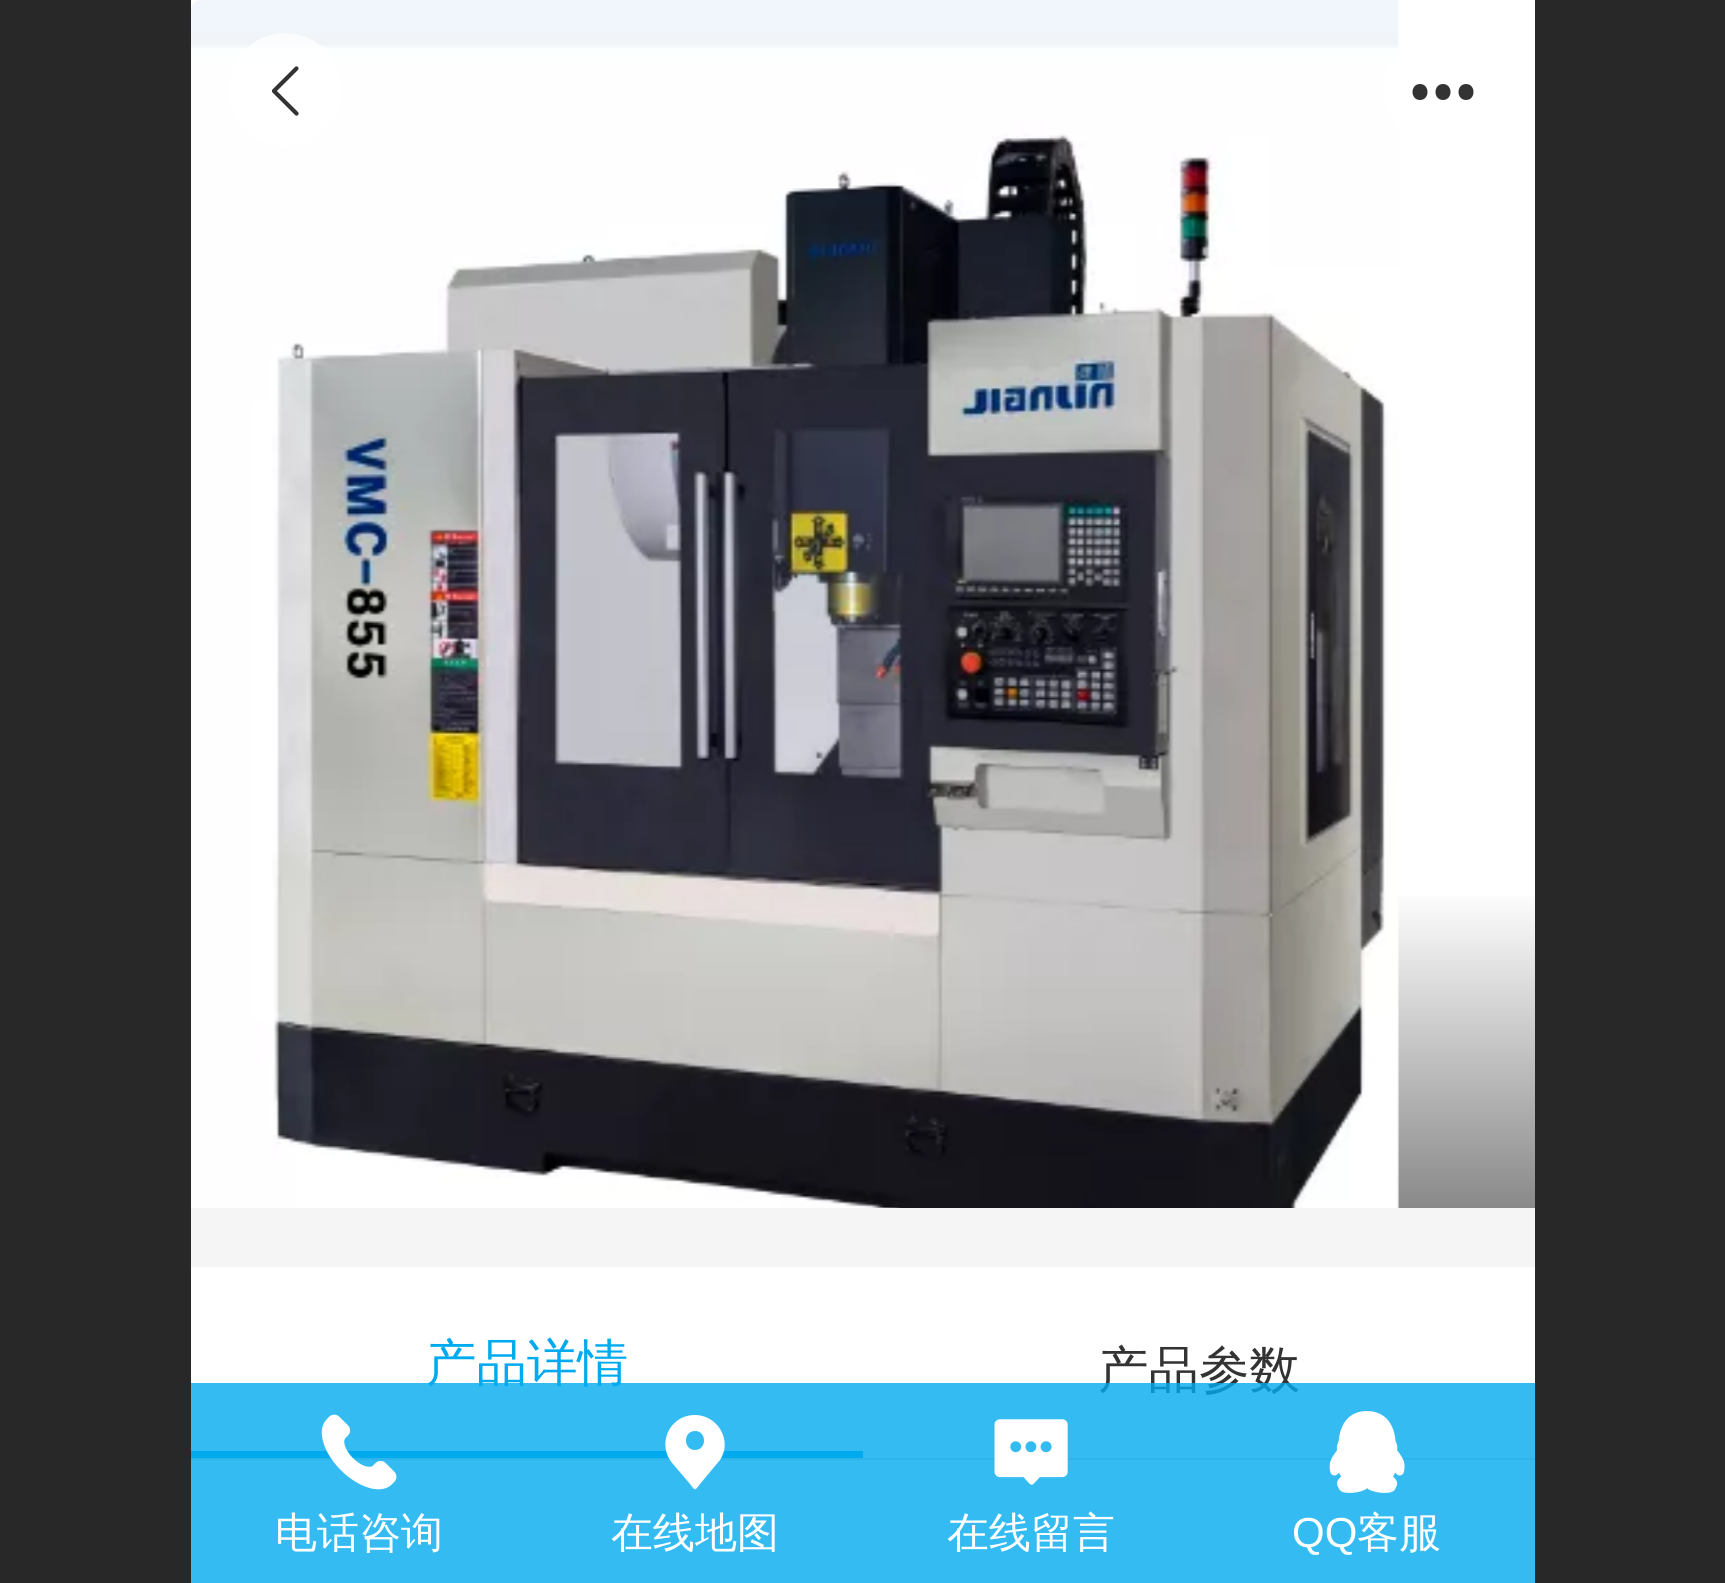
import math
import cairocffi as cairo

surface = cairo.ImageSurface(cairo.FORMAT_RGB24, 1725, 1583)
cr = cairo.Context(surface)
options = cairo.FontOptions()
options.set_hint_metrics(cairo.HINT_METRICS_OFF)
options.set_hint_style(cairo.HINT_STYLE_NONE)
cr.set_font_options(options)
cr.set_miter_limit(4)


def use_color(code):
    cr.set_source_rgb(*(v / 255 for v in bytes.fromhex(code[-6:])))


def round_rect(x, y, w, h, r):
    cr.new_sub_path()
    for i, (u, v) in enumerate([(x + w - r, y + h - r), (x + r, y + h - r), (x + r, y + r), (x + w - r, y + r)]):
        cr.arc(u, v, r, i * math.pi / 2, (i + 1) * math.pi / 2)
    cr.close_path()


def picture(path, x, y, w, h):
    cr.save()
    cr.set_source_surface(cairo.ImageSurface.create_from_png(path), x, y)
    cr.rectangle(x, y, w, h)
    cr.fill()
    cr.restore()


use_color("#ffffff")
cr.paint()
use_color("#282828")
cr.rectangle(0, 0, 191, 1583)
cr.fill()
gradient = cairo.LinearGradient(863, 889, 863, 1208)
gradient.add_color_stop_rgba(0, 1, 1, 1, 1)
gradient.add_color_stop_rgba(1, 0.537, 0.537, 0.537, 1)
cr.set_source(gradient)
cr.rectangle(1397, 896, 138, 312)
cr.fill()
picture("img2.png", 191, 0, 1208, 1208)
cr.set_source_rgba(1, 1, 1, 0.7)
round_rect(229, 33, 112, 114, 56)
cr.fill()
picture("img1.png", 271, 66, 28, 50)
round_rect(1384, 33, 112, 114, 56)
cr.fill()
use_color("#333333")
cr.new_path()
cr.move_to(1420, 100)
cr.curve_to(1410, 100, 1410, 84, 1420, 84)
cr.curve_to(1430, 84, 1430, 100, 1420, 100)
cr.close_path()
cr.move_to(1443, 100)
cr.curve_to(1433, 100, 1433, 84, 1443, 84)
cr.curve_to(1453, 84, 1453, 100, 1443, 100)
cr.close_path()
cr.move_to(1466, 100)
cr.curve_to(1456, 100, 1456, 84, 1466, 84)
cr.curve_to(1476, 84, 1476, 100, 1466, 100)
cr.close_path()
cr.fill()
use_color("#f5f5f5")
cr.rectangle(191, 1208, 1344, 59)
cr.fill()
use_color("#dddddd")
cr.rectangle(191, 1458, 1344, 2)
cr.fill()
use_color("#00aaee")
cr.rectangle(191, 1451, 672, 7)
cr.fill()
cr.select_font_face("WenQuanYi Zen Hei Medium")
cr.set_font_size(50.5)
cr.move_to(426, 1380)
cr.show_text("产品详情")
use_color("#333333")
cr.move_to(1098, 1387)
cr.show_text("产品参数")
cr.set_source_rgba(0, 0.667, 0.933, 0.8)
cr.rectangle(191, 1383, 1344, 200)
cr.fill()
picture("img3.png", 321, 1414, 76, 76)
cr.set_font_size(42)
use_color("#ffffff")
cr.move_to(275, 1547)
cr.show_text("电话咨询")
cr.new_path()
cr.move_to(695, 1415)
cr.curve_to(669, 1415, 656, 1445, 673, 1464)
cr.line_to(690, 1484)
cr.curve_to(695, 1491, 695, 1491, 700, 1484)
cr.line_to(720, 1460)
cr.curve_to(722, 1457, 723, 1454, 724, 1451)
cr.curve_to(728, 1433, 714, 1415, 695, 1415)
cr.close_path()
cr.move_to(695, 1450)
cr.curve_to(683, 1450, 683, 1431, 695, 1431)
cr.curve_to(707, 1431, 707, 1450, 695, 1450)
cr.close_path()
cr.fill()
cr.move_to(611, 1547)
cr.show_text("在线地图")
picture("img4.png", 994, 1419, 74, 66)
cr.move_to(947, 1547)
cr.show_text("在线留言")
picture("img5.png", 1329, 1411, 76, 82)
cr.select_font_face("Liberation Sans")
cr.move_to(1292, 1547)
cr.show_text("QQ")
cr.select_font_face("WenQuanYi Zen Hei Medium")
cr.move_to(1357, 1547)
cr.show_text("客服")
use_color("#282828")
cr.rectangle(1535, 0, 190, 1583)
cr.fill()
surface.write_to_png("result.png")
